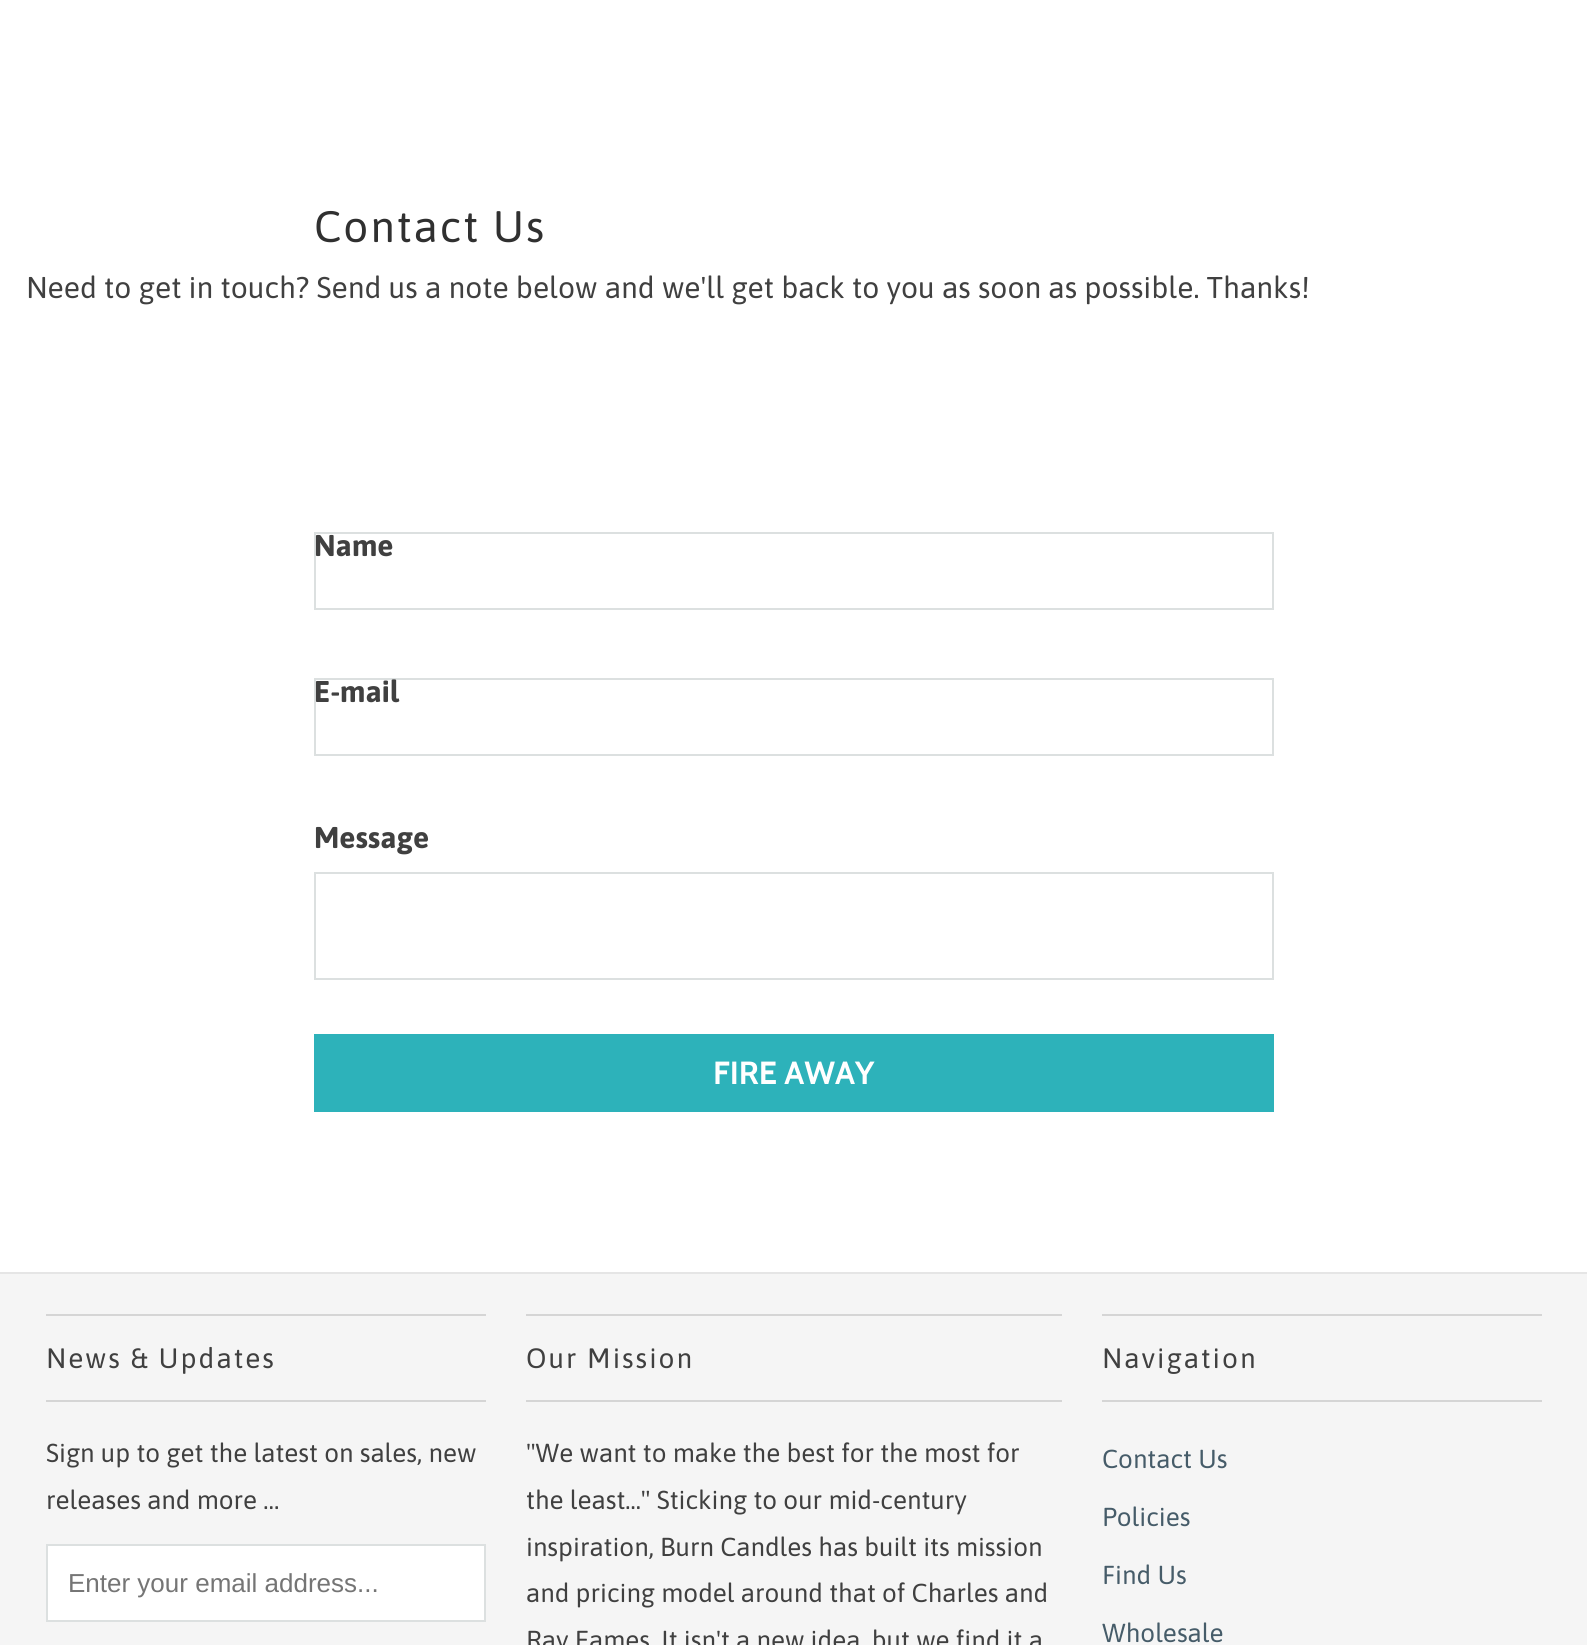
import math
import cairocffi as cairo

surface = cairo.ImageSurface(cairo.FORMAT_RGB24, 1587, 1645)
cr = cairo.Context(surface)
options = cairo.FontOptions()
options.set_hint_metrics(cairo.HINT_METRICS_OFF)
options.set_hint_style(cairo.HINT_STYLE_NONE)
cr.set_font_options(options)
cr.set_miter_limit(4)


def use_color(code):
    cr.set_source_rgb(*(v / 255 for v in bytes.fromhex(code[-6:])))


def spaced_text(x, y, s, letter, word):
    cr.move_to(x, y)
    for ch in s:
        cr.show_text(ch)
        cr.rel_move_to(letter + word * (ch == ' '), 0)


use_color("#ffffff")
cr.paint()
cr.select_font_face("Asap")
cr.set_font_size(44)
use_color("#303030")
spaced_text(314, 242, "Contact Us", 2, 0)
cr.set_font_size(30)
use_color("#404040")
cr.move_to(26, 298)
cr.show_text("Need to get in touch? Send us a note below and we'll get back to you as soon as possible. Thanks!")
cr.rectangle(315, 533, 958, 76)
use_color("#dce0e0")
cr.stroke()
cr.select_font_face("Asap", cairo.FONT_SLANT_NORMAL, cairo.FONT_WEIGHT_BOLD)
use_color("#404040")
cr.move_to(314, 556)
cr.show_text("Name")
cr.rectangle(315, 679, 958, 76)
use_color("#dce0e0")
cr.stroke()
use_color("#404040")
cr.move_to(314, 702)
cr.show_text("E-mail")
cr.move_to(314, 848)
cr.show_text("Message")
cr.rectangle(315, 873, 958, 106)
use_color("#dce0e0")
cr.stroke()
use_color("#2db2ba")
cr.rectangle(314, 1034, 960, 78)
cr.fill()
cr.select_font_face("Cabin", cairo.FONT_SLANT_NORMAL, cairo.FONT_WEIGHT_BOLD)
cr.set_font_size(32)
use_color("#ffffff")
cr.move_to(713, 1084)
cr.show_text("FIRE AWAY")
use_color("#f5f5f5")
cr.rectangle(0, 1274, 1587, 371)
cr.fill()
use_color("#e5e5e5")
cr.rectangle(0, 1272, 1587, 2)
cr.fill()
use_color("#d5d5d5")
cr.rectangle(46, 1314, 440, 2)
cr.fill()
cr.rectangle(46, 1400, 440, 2)
cr.fill()
cr.select_font_face("Asap")
cr.set_font_size(28)
use_color("#404040")
spaced_text(46, 1368, "News & Updates", 2, 0)
cr.set_font_size(26)
cr.move_to(46, 1462)
cr.show_text("Sign up to get the latest on sales, new")
cr.move_to(46, 1509)
cr.show_text("releases and more …")
use_color("#ffffff")
cr.rectangle(47, 1545, 438, 76)
cr.fill_preserve()
use_color("#dce0e0")
cr.stroke()
cr.select_font_face("Liberation Sans")
use_color("#757575")
cr.move_to(68, 1592)
cr.show_text("Enter your email address...")
use_color("#d5d5d5")
cr.rectangle(526, 1314, 536, 2)
cr.fill()
cr.rectangle(526, 1400, 536, 2)
cr.fill()
cr.select_font_face("Asap")
cr.set_font_size(28)
use_color("#404040")
spaced_text(526, 1368, "Our Mission", 2, 0)
cr.set_font_size(26)
cr.move_to(526, 1462)
cr.show_text("\"We want to make the best for the most for")
cr.move_to(526, 1509)
cr.show_text("the least...\" Sticking to our mid-century")
cr.move_to(526, 1556)
cr.show_text("inspiration, Burn Candles has built its mission")
cr.move_to(526, 1602)
cr.show_text("and pricing model around that of Charles and")
cr.move_to(526, 1649)
cr.show_text("Ray Eames. It isn't a new idea, but we find it a")
use_color("#d5d5d5")
cr.rectangle(1102, 1314, 440, 2)
cr.fill()
cr.rectangle(1102, 1400, 440, 2)
cr.fill()
cr.set_font_size(28)
use_color("#404040")
spaced_text(1102, 1368, "Navigation", 2, 0)
cr.set_font_size(26)
use_color("#465c69")
cr.move_to(1102, 1468)
cr.show_text("Contact Us")
cr.move_to(1102, 1526)
cr.show_text("Policies")
cr.move_to(1102, 1584)
cr.show_text("Find Us")
cr.move_to(1102, 1642)
cr.show_text("Wholesale")
surface.write_to_png("result.png")
